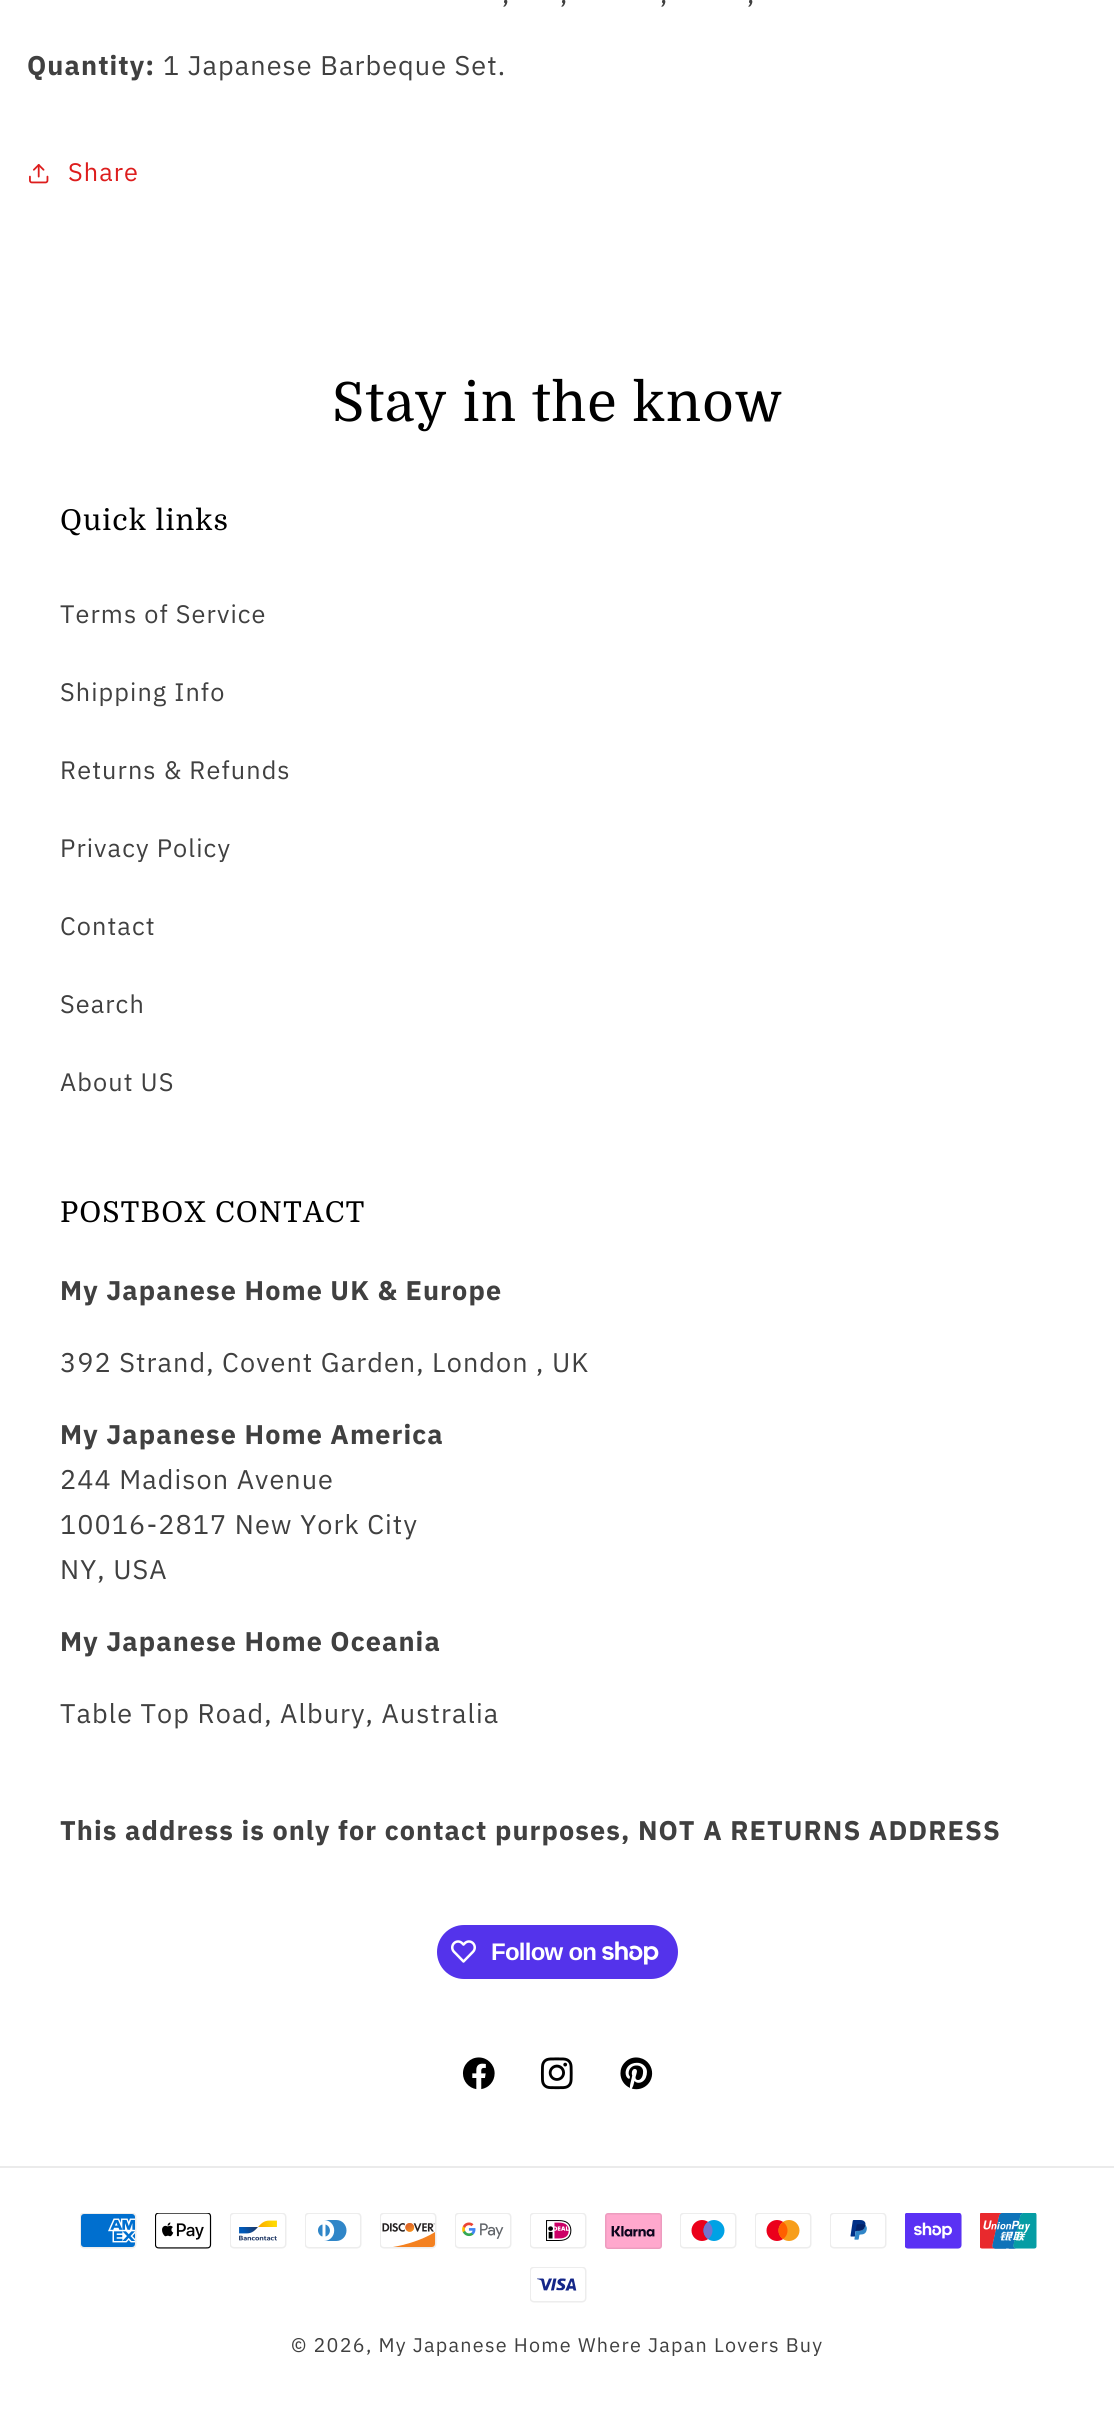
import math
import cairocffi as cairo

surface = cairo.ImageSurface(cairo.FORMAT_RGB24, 1114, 2423)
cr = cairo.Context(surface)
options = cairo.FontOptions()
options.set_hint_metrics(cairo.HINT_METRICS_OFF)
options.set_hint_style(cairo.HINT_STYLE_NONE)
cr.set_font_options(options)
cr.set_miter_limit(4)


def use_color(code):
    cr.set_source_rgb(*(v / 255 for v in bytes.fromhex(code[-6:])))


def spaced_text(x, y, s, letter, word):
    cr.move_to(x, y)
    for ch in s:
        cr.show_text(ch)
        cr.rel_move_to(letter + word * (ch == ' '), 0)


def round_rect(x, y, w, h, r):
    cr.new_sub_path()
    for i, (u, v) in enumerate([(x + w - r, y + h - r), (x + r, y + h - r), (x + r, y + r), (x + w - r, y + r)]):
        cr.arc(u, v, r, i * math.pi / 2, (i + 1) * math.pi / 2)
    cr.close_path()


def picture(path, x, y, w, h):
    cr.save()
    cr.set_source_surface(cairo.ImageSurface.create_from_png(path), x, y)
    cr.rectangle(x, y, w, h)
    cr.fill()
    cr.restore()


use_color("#ffffff")
cr.paint()
cr.select_font_face("IBM Plex Sans")
cr.set_font_size(27)
use_color("#404040")
spaced_text(502, 3, ",", 1.08, 0)
spaced_text(560, 3, ",", 1.08, 0)
spaced_text(660, 3, ",", 1.08, 0)
spaced_text(747, 3, ",", 1.08, 0)
cr.select_font_face("IBM Plex Sans", cairo.FONT_SLANT_NORMAL, cairo.FONT_WEIGHT_BOLD)
spaced_text(27, 75, "Quantity:", 1.08, 0)
cr.select_font_face("IBM Plex Sans")
spaced_text(163, 75, "1 Japanese Barbeque Set.", 1.08, 0)
picture("img1.png", 29, 164, 20, 20)
cr.set_font_size(25.25)
use_color("#dd1d1d")
spaced_text(68, 181, "Share", 1.08, 0)
cr.select_font_face("Domine")
cr.set_font_size(54)
use_color("#000000")
spaced_text(332, 421, "Stay in the know", 1.08, 0)
cr.set_font_size(28.75)
spaced_text(60, 530, "Quick links", 1.08, 0)
cr.select_font_face("IBM Plex Sans")
cr.set_font_size(25.25)
use_color("#404040")
spaced_text(60, 623, "Terms of Service", 1.08, 0)
spaced_text(60, 701, "Shipping Info", 1.08, 0)
spaced_text(60, 779, "Returns & Refunds", 1.08, 0)
spaced_text(60, 857, "Privacy Policy", 1.08, 0)
spaced_text(60, 935, "Contact", 1.08, 0)
spaced_text(60, 1013, "Search", 1.08, 0)
spaced_text(60, 1091, "About US", 1.08, 0)
cr.select_font_face("Domine")
cr.set_font_size(28.75)
use_color("#000000")
spaced_text(60, 1222, "POSTBOX CONTACT", 1.08, 0)
cr.select_font_face("IBM Plex Sans", cairo.FONT_SLANT_NORMAL, cairo.FONT_WEIGHT_BOLD)
cr.set_font_size(27)
use_color("#404040")
spaced_text(60, 1300, "My Japanese Home UK & Europe", 1.08, 0)
cr.select_font_face("IBM Plex Sans")
spaced_text(60, 1372, "392 Strand, Covent Garden, London , UK", 1.08, 0)
cr.select_font_face("IBM Plex Sans", cairo.FONT_SLANT_NORMAL, cairo.FONT_WEIGHT_BOLD)
spaced_text(60, 1444, "My Japanese Home America", 1.08, 0)
cr.select_font_face("IBM Plex Sans")
spaced_text(60, 1489, "244 Madison Avenue", 1.08, 0)
spaced_text(60, 1534, "10016-2817 New York City", 1.08, 0)
spaced_text(60, 1579, "NY, USA", 1.08, 0)
cr.select_font_face("IBM Plex Sans", cairo.FONT_SLANT_NORMAL, cairo.FONT_WEIGHT_BOLD)
spaced_text(60, 1651, "My Japanese Home Oceania", 1.08, 0)
cr.select_font_face("IBM Plex Sans")
spaced_text(60, 1723, "Table Top Road, Albury, Australia", 1.08, 0)
cr.select_font_face("IBM Plex Sans", cairo.FONT_SLANT_NORMAL, cairo.FONT_WEIGHT_BOLD)
spaced_text(60, 1840, "This address is only for contact purposes, NOT A RETURNS ADDRESS", 1.08, 0)
use_color("#5433eb")
round_rect(437, 1925, 241, 54, 27)
cr.fill()
picture("img2.png", 451, 1940, 25, 23)
cr.select_font_face("Liberation Sans", cairo.FONT_SLANT_NORMAL, cairo.FONT_WEIGHT_BOLD)
cr.set_font_size(24)
use_color("#ffffff")
spaced_text(491, 1960, "Follow on", -0.75, 0)
picture("img3.png", 602, 1941, 57, 24)
picture("img4.png", 462, 2057, 33, 33)
picture("img5.png", 540, 2057, 33, 33)
picture("img6.png", 620, 2057, 33, 33)
use_color("#ebebeb")
cr.rectangle(0, 2166, 1114, 2)
cr.fill()
picture("img7.png", 80, 2213, 57, 36)
picture("img8.png", 155, 2213, 57, 36)
picture("img9.png", 230, 2213, 57, 36)
picture("img10.png", 305, 2213, 57, 36)
picture("img11.png", 380, 2213, 57, 36)
picture("img12.png", 455, 2213, 57, 36)
picture("img13.png", 530, 2213, 57, 36)
picture("img14.png", 605, 2213, 57, 36)
picture("img15.png", 680, 2213, 57, 36)
picture("img16.png", 755, 2213, 57, 36)
picture("img17.png", 830, 2213, 57, 36)
picture("img18.png", 905, 2213, 57, 36)
picture("img19.png", 980, 2213, 57, 36)
picture("img20.png", 530, 2267, 57, 36)
cr.select_font_face("IBM Plex Sans")
cr.set_font_size(19.75)
use_color("#404040")
spaced_text(291, 2352, "© 2026, My Japanese Home", 1.25, 0)
spaced_text(578, 2352, "Where Japan Lovers Buy", 1.25, 0)
surface.write_to_png("result.png")
